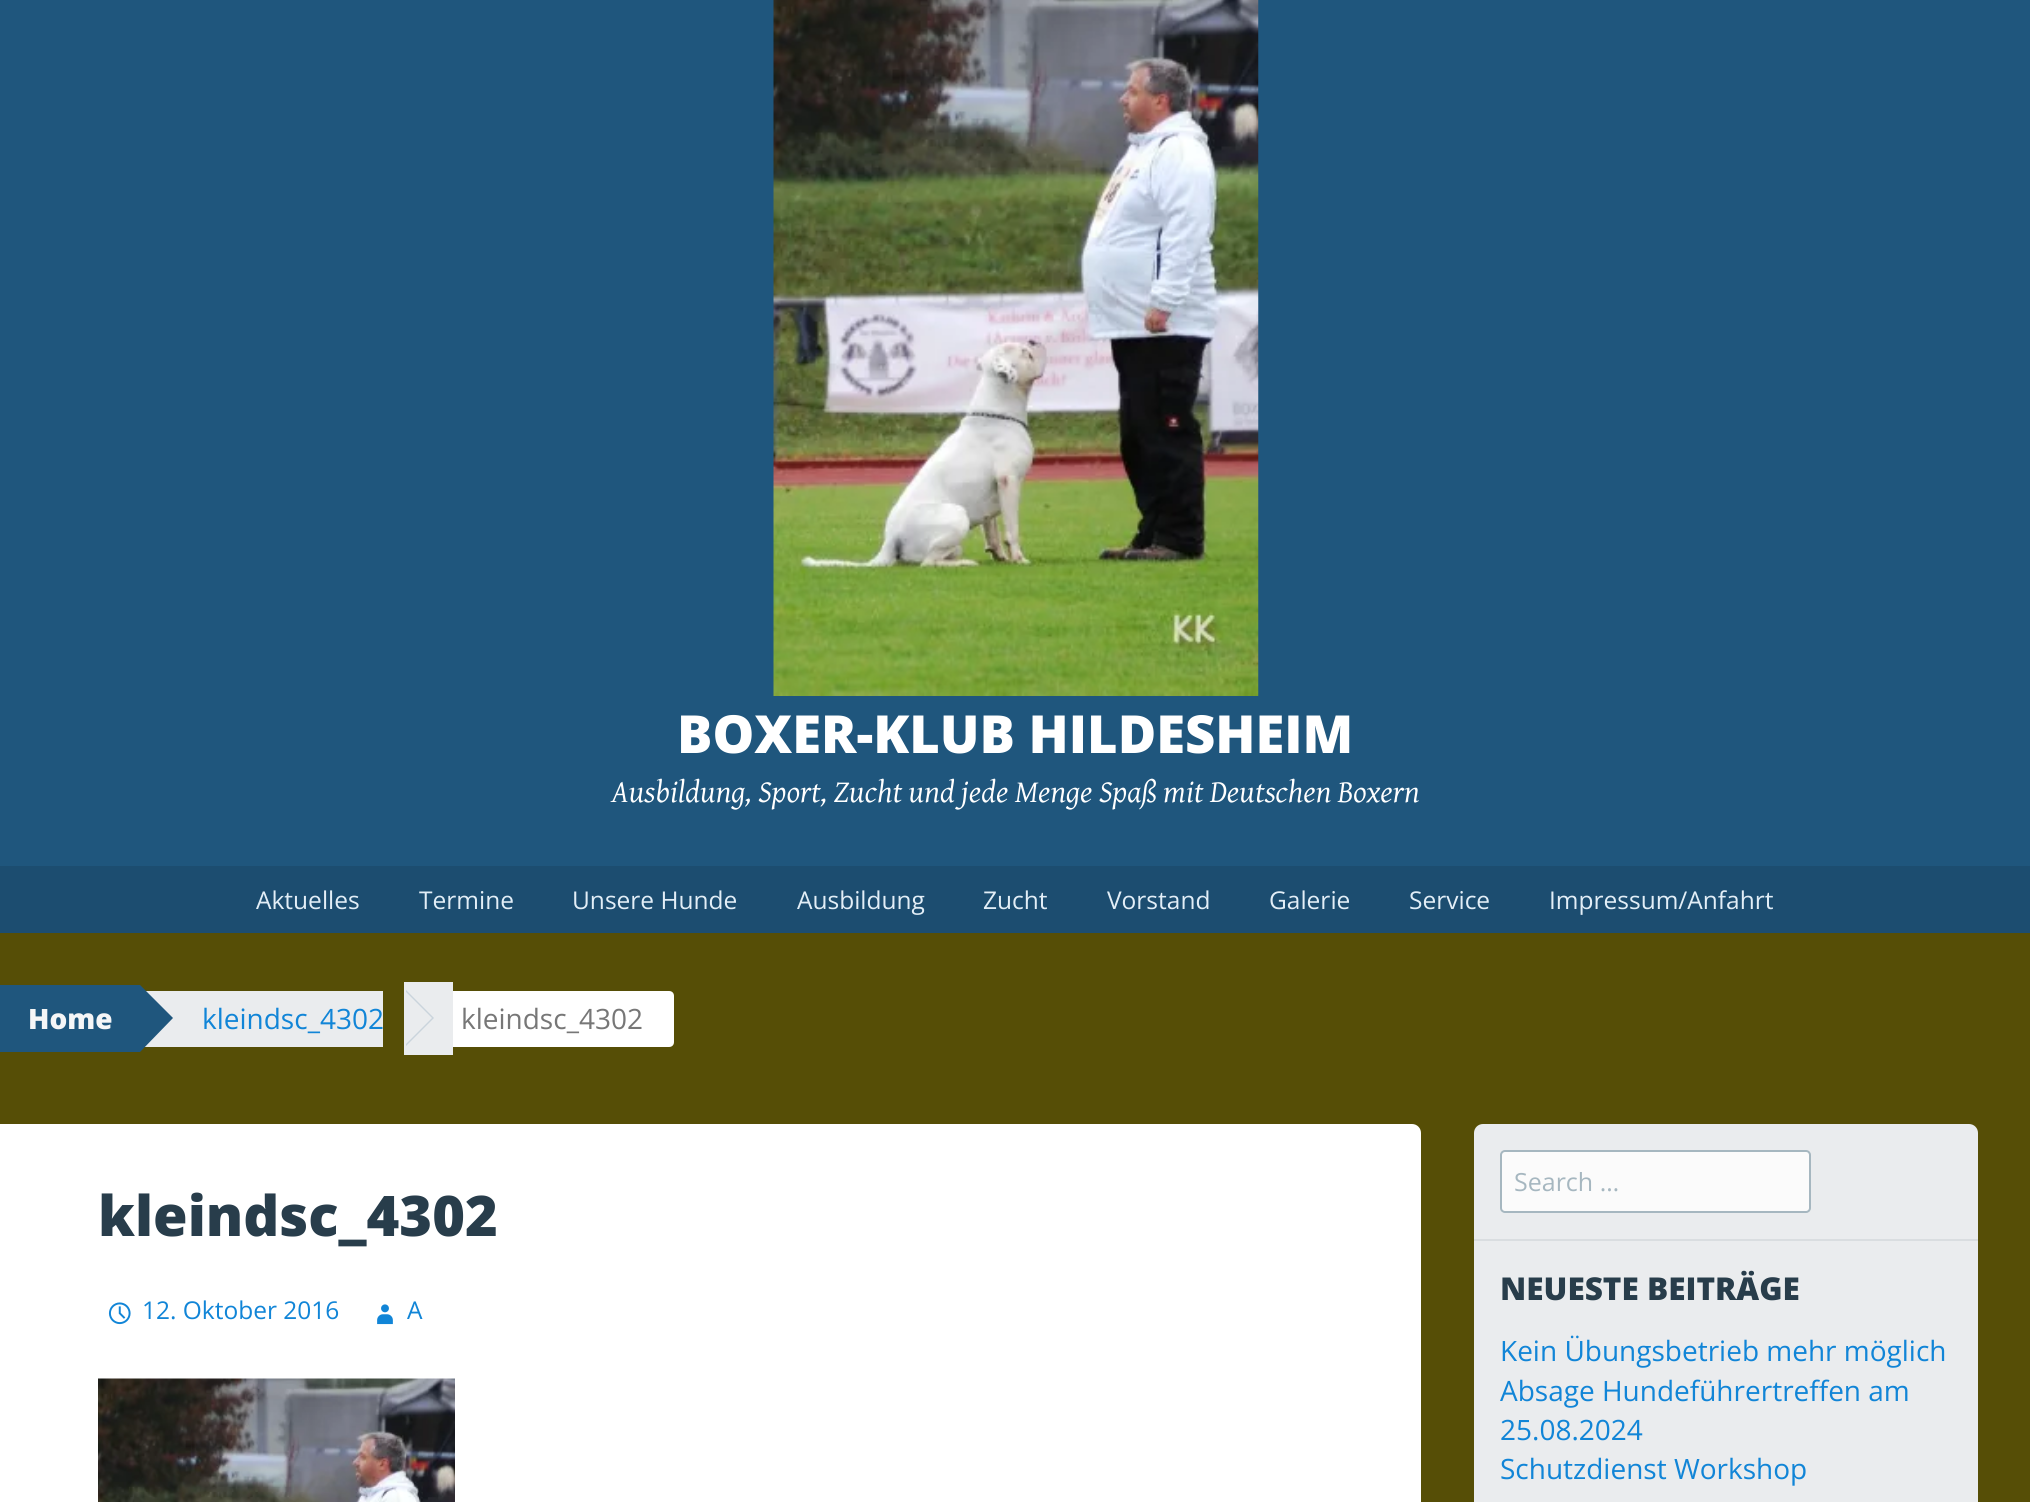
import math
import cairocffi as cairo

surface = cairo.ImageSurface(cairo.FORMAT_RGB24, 2030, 1502)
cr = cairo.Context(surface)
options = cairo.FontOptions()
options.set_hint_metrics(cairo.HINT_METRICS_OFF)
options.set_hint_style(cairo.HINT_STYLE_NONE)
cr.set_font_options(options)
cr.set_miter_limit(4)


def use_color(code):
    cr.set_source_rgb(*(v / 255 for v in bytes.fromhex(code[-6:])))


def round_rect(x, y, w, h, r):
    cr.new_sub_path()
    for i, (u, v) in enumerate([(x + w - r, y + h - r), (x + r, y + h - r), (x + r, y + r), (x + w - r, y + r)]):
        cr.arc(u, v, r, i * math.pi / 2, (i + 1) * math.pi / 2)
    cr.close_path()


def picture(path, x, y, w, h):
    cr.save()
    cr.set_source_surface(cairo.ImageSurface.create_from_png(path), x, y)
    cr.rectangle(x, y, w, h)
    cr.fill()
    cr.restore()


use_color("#564e06")
cr.paint()
use_color("#1f567d")
cr.rectangle(0, 0, 2030, 866)
cr.fill()
picture("img1.png", 773, 0, 486, 696)
cr.select_font_face("Open Sans ExtraBold")
cr.set_font_size(52.5)
use_color("#ffffff")
cr.move_to(677, 753)
cr.show_text("BOXER-KLUB HILDESHEIM")
cr.select_font_face("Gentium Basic", cairo.FONT_SLANT_ITALIC)
cr.set_font_size(31.5)
cr.move_to(611, 802)
cr.show_text("Ausbildung, Sport, Zucht und jede Menge Spaß mit Deutschen Boxern")
use_color("#1c4d70")
cr.rectangle(0, 866, 2030, 67)
cr.fill()
cr.select_font_face("Open Sans")
cr.set_font_size(24.5)
use_color("#e2eef7")
cr.move_to(256, 909)
cr.show_text("Aktuelles")
cr.move_to(419, 909)
cr.show_text("Termine")
cr.move_to(572, 909)
cr.show_text("Unsere Hunde")
cr.move_to(797, 909)
cr.show_text("Ausbildung")
cr.move_to(983, 909)
cr.show_text("Zucht")
cr.move_to(1107, 909)
cr.show_text("Vorstand")
cr.move_to(1269, 909)
cr.show_text("Galerie")
cr.move_to(1409, 909)
cr.show_text("Service")
cr.move_to(1549, 909)
cr.show_text("Impressum/Anfahrt")
use_color("#1f567d")
cr.rectangle(0, 985, 140, 67)
cr.fill()
cr.select_font_face("Open Sans ExtraBold")
cr.set_font_size(28)
use_color("#f5f6f7")
cr.move_to(28, 1029)
cr.show_text("Home")
use_color("#eaecee")
cr.rectangle(144, 991, 239, 56)
cr.fill()
use_color("#1f567d")
cr.new_path()
cr.move_to(140, 1052)
cr.line_to(140, 985)
cr.line_to(173, 1018)
cr.close_path()
cr.fill()
use_color("#eaecee")
cr.rectangle(404, 982, 49, 73)
cr.fill()
use_color("#cad4dc")
cr.new_path()
cr.move_to(406, 1046)
cr.line_to(406, 990)
cr.line_to(434, 1018)
cr.close_path()
cr.fill()
use_color("#eaecee")
cr.new_path()
cr.move_to(404, 1046)
cr.line_to(404, 990)
cr.line_to(432, 1018)
cr.close_path()
cr.fill()
cr.select_font_face("Open Sans")
use_color("#1185d7")
cr.move_to(202, 1029)
cr.show_text("kleindsc_4302")
use_color("#ffffff")
cr.new_path()
cr.move_to(460, 991)
cr.line_to(669, 991)
cr.curve_to(672, 991, 674, 993, 674, 996)
cr.line_to(674, 1042)
cr.curve_to(674, 1045, 672, 1047, 669, 1047)
cr.line_to(460, 1047)
cr.close_path()
cr.fill()
use_color("#777777")
cr.move_to(461, 1029)
cr.show_text("kleindsc_4302")
use_color("#ffffff")
cr.rectangle(453, 991, 7, 56)
cr.fill()
cr.new_path()
cr.move_to(0, 1124)
cr.line_to(1412, 1124)
cr.curve_to(1417, 1124, 1421, 1128, 1421, 1133)
cr.line_to(1421, 1502)
cr.curve_to(1421, 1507, 1417, 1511, 1412, 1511)
cr.line_to(0, 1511)
cr.close_path()
cr.fill()
cr.select_font_face("Open Sans ExtraBold")
cr.set_font_size(56)
use_color("#283d4b")
cr.move_to(98, 1236)
cr.show_text("kleindsc_4302")
picture("img2.png", 108, 1302, 23, 23)
cr.select_font_face("Open Sans")
cr.set_font_size(24.5)
use_color("#1185d7")
cr.move_to(142, 1319)
cr.show_text("12. Oktober 2016")
picture("img3.png", 377, 1304, 16, 21)
cr.move_to(407, 1319)
cr.show_text("A")
picture("img4.png", 98, 1378, 357, 124)
use_color("#eaecee")
cr.new_path()
cr.move_to(1483, 1124)
cr.line_to(1969, 1124)
cr.curve_to(1974, 1124, 1978, 1128, 1978, 1133)
cr.line_to(1978, 1239)
cr.line_to(1474, 1239)
cr.line_to(1474, 1133)
cr.curve_to(1474, 1128, 1478, 1124, 1483, 1124)
cr.close_path()
cr.fill()
use_color("#fbfbfb")
round_rect(1501, 1151, 309, 61, 4)
cr.fill_preserve()
use_color("#a6b7c0")
cr.stroke()
cr.set_font_size(25)
cr.move_to(1514, 1191)
cr.show_text("Search …")
use_color("#eaecee")
cr.rectangle(1474, 1241, 504, 261)
cr.fill()
use_color("#d9dde0")
cr.rectangle(1474, 1239, 504, 2)
cr.fill()
cr.select_font_face("Open Sans ExtraBold")
cr.set_font_size(31.5)
use_color("#283d4b")
cr.move_to(1500, 1300)
cr.show_text("NEUESTE BEITRÄGE")
cr.select_font_face("Open Sans")
cr.set_font_size(28)
use_color("#1185d7")
cr.move_to(1500, 1361)
cr.show_text("Kein Übungsbetrieb mehr möglich")
cr.move_to(1500, 1401)
cr.show_text("Absage Hundeführertreffen am")
cr.move_to(1500, 1440)
cr.show_text("25.08.2024")
cr.move_to(1500, 1479)
cr.show_text("Schutzdienst Workshop")
surface.write_to_png("result.png")
